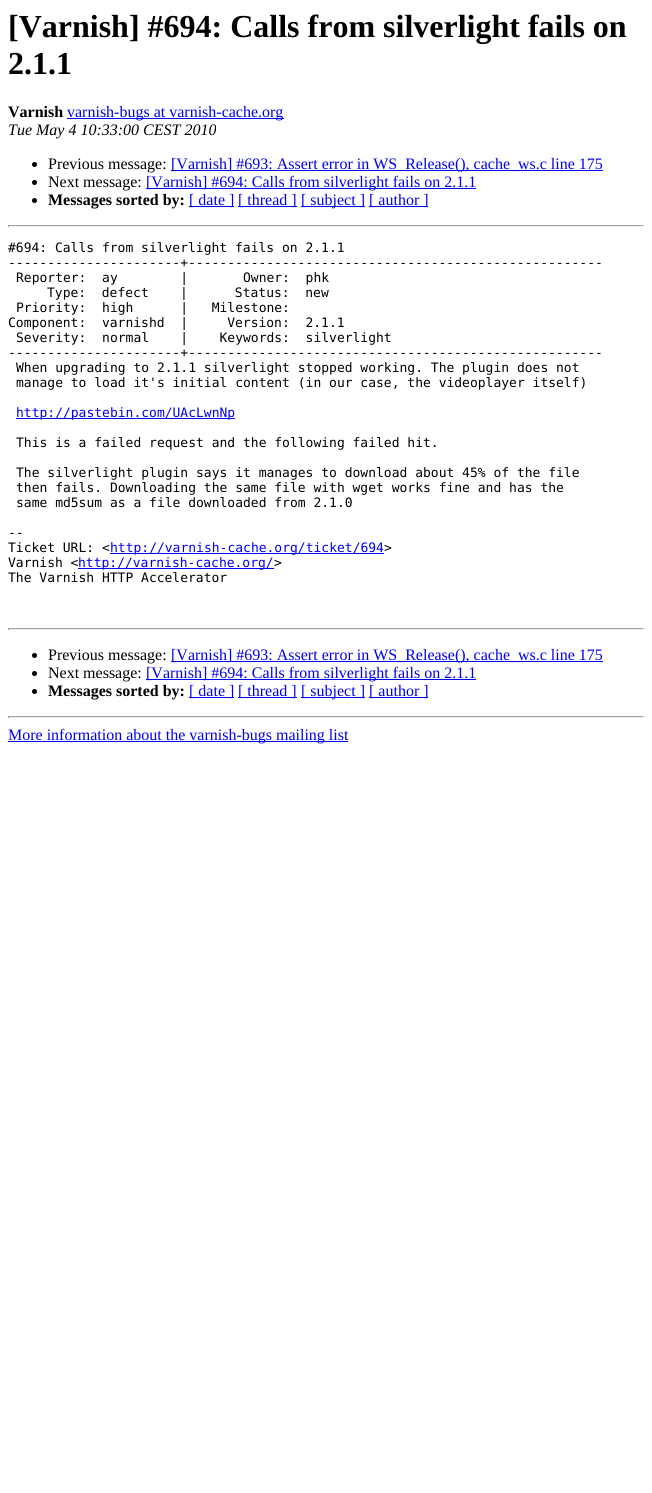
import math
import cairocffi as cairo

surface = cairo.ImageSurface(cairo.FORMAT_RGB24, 652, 1493)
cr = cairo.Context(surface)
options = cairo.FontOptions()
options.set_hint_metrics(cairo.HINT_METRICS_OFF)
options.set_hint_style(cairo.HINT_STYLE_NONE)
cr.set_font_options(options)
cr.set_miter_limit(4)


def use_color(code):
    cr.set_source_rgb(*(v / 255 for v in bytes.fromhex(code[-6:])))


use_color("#ffffff")
cr.paint()
cr.select_font_face("Liberation Serif", cairo.FONT_SLANT_NORMAL, cairo.FONT_WEIGHT_BOLD)
cr.set_font_size(32)
use_color("#000000")
cr.move_to(8, 37)
cr.show_text("[Varnish] #694: Calls from silverlight fails on")
cr.move_to(8, 74)
cr.show_text("2.1.1")
cr.set_font_size(16)
cr.move_to(8, 117)
cr.show_text("Varnish")
use_color("#0000ee")
cr.rectangle(67, 118, 217, 1)
cr.fill()
cr.select_font_face("Liberation Serif")
cr.move_to(67, 117)
cr.show_text("varnish-bugs at varnish-cache.org")
cr.select_font_face("Liberation Serif", cairo.FONT_SLANT_ITALIC)
use_color("#000000")
cr.move_to(8, 135)
cr.show_text("Tue May 4 10:33:00 CEST 2010")
cr.new_path()
cr.arc(34.5, 164.5, 2.5, 0, 2 * math.pi)
cr.fill()
cr.select_font_face("Liberation Serif")
cr.move_to(48, 169)
cr.show_text("Previous message:")
use_color("#0000ee")
cr.rectangle(171, 170, 432, 1)
cr.fill()
cr.move_to(171, 169)
cr.show_text("[Varnish] #693: Assert error in WS_Release(), cache_ws.c line 175")
use_color("#000000")
cr.new_path()
cr.arc(34.5, 182.5, 2.5, 0, 2 * math.pi)
cr.fill()
cr.move_to(48, 187)
cr.show_text("Next message:")
use_color("#0000ee")
cr.rectangle(146, 188, 330, 1)
cr.fill()
cr.move_to(146, 187)
cr.show_text("[Varnish] #694: Calls from silverlight fails on 2.1.1")
use_color("#000000")
cr.new_path()
cr.arc(34.5, 200.5, 2.5, 0, 2 * math.pi)
cr.fill()
cr.select_font_face("Liberation Serif", cairo.FONT_SLANT_NORMAL, cairo.FONT_WEIGHT_BOLD)
cr.move_to(48, 205)
cr.show_text("Messages sorted by:")
use_color("#0000ee")
cr.rectangle(189, 206, 45, 1)
cr.fill()
cr.select_font_face("Liberation Serif")
cr.move_to(189, 205)
cr.show_text("[ date ]")
cr.rectangle(238, 206, 59, 1)
cr.fill()
cr.move_to(238, 205)
cr.show_text("[ thread ]")
cr.rectangle(301, 206, 64, 1)
cr.fill()
cr.move_to(301, 205)
cr.show_text("[ subject ]")
cr.rectangle(369, 206, 59, 1)
cr.fill()
cr.move_to(369, 205)
cr.show_text("[ author ]")
use_color("#9f9f9f")
cr.rectangle(8, 225, 636, 1)
cr.fill()
use_color("#eeeeee")
cr.rectangle(643, 225, 1, 2)
cr.fill()
cr.rectangle(8, 226, 636, 1)
cr.fill()
use_color("#9f9f9f")
cr.rectangle(8, 225, 1, 2)
cr.fill()
cr.select_font_face("DejaVu Sans Mono")
cr.set_font_size(13)
use_color("#000000")
cr.move_to(8, 252)
cr.show_text("#694: Calls from silverlight fails on 2.1.1")
cr.move_to(8, 267)
cr.show_text("----------------------+-----------------------------------------------------")
cr.move_to(16, 282)
cr.show_text("Reporter:  ay        |       Owner:  phk")
cr.move_to(47, 297)
cr.show_text("Type:  defect    |      Status:  new")
cr.move_to(16, 312)
cr.show_text("Priority:  high      |   Milestone:")
cr.move_to(8, 327)
cr.show_text("Component:  varnishd  |     Version:  2.1.1")
cr.move_to(16, 342)
cr.show_text("Severity:  normal    |    Keywords:  silverlight")
cr.move_to(8, 357)
cr.show_text("----------------------+-----------------------------------------------------")
cr.move_to(16, 372)
cr.show_text("When upgrading to 2.1.1 silverlight stopped working. The plugin does not")
cr.move_to(16, 387)
cr.show_text("manage to load it's initial content (in our case, the videoplayer itself)")
use_color("#0000ee")
cr.rectangle(16, 418, 219, 1)
cr.fill()
cr.move_to(16, 417)
cr.show_text("http://pastebin.com/UAcLwnNp")
use_color("#000000")
cr.move_to(16, 447)
cr.show_text("This is a failed request and the following failed hit.")
cr.move_to(16, 477)
cr.show_text("The silverlight plugin says it manages to download about 45% of the file")
cr.move_to(16, 492)
cr.show_text("then fails. Downloading the same file with wget works fine and has the")
cr.move_to(16, 507)
cr.show_text("same md5sum as a file downloaded from 2.1.0")
cr.move_to(8, 537)
cr.show_text("--")
cr.move_to(8, 552)
cr.show_text("Ticket URL: <")
use_color("#0000ee")
cr.rectangle(110, 553, 274, 1)
cr.fill()
cr.move_to(110, 552)
cr.show_text("http://varnish-cache.org/ticket/694")
use_color("#000000")
cr.move_to(384, 552)
cr.show_text(">")
cr.move_to(8, 567)
cr.show_text("Varnish <")
use_color("#0000ee")
cr.rectangle(78, 568, 196, 1)
cr.fill()
cr.move_to(78, 567)
cr.show_text("http://varnish-cache.org/")
use_color("#000000")
cr.move_to(274, 567)
cr.show_text(">")
cr.move_to(8, 582)
cr.show_text("The Varnish HTTP Accelerator")
use_color("#9f9f9f")
cr.rectangle(8, 628, 636, 1)
cr.fill()
use_color("#eeeeee")
cr.rectangle(643, 628, 1, 2)
cr.fill()
cr.rectangle(8, 629, 636, 1)
cr.fill()
use_color("#9f9f9f")
cr.rectangle(8, 628, 1, 2)
cr.fill()
use_color("#000000")
cr.arc(34.5, 655.5, 2.5, 0, 2 * math.pi)
cr.fill()
cr.select_font_face("Liberation Serif")
cr.set_font_size(16)
cr.move_to(48, 660)
cr.show_text("Previous message:")
use_color("#0000ee")
cr.rectangle(171, 661, 432, 1)
cr.fill()
cr.move_to(171, 660)
cr.show_text("[Varnish] #693: Assert error in WS_Release(), cache_ws.c line 175")
use_color("#000000")
cr.new_path()
cr.arc(34.5, 673.5, 2.5, 0, 2 * math.pi)
cr.fill()
cr.move_to(48, 678)
cr.show_text("Next message:")
use_color("#0000ee")
cr.rectangle(146, 679, 330, 1)
cr.fill()
cr.move_to(146, 678)
cr.show_text("[Varnish] #694: Calls from silverlight fails on 2.1.1")
use_color("#000000")
cr.new_path()
cr.arc(34.5, 691.5, 2.5, 0, 2 * math.pi)
cr.fill()
cr.select_font_face("Liberation Serif", cairo.FONT_SLANT_NORMAL, cairo.FONT_WEIGHT_BOLD)
cr.move_to(48, 696)
cr.show_text("Messages sorted by:")
use_color("#0000ee")
cr.rectangle(189, 697, 45, 1)
cr.fill()
cr.select_font_face("Liberation Serif")
cr.move_to(189, 696)
cr.show_text("[ date ]")
cr.rectangle(238, 697, 59, 1)
cr.fill()
cr.move_to(238, 696)
cr.show_text("[ thread ]")
cr.rectangle(301, 697, 64, 1)
cr.fill()
cr.move_to(301, 696)
cr.show_text("[ subject ]")
cr.rectangle(369, 697, 59, 1)
cr.fill()
cr.move_to(369, 696)
cr.show_text("[ author ]")
use_color("#9f9f9f")
cr.rectangle(8, 716, 636, 1)
cr.fill()
use_color("#eeeeee")
cr.rectangle(643, 716, 1, 2)
cr.fill()
cr.rectangle(8, 717, 636, 1)
cr.fill()
use_color("#9f9f9f")
cr.rectangle(8, 716, 1, 2)
cr.fill()
use_color("#0000ee")
cr.rectangle(8, 741, 340, 1)
cr.fill()
cr.move_to(8, 740)
cr.show_text("More information about the varnish-bugs mailing list")
surface.write_to_png("result.png")
